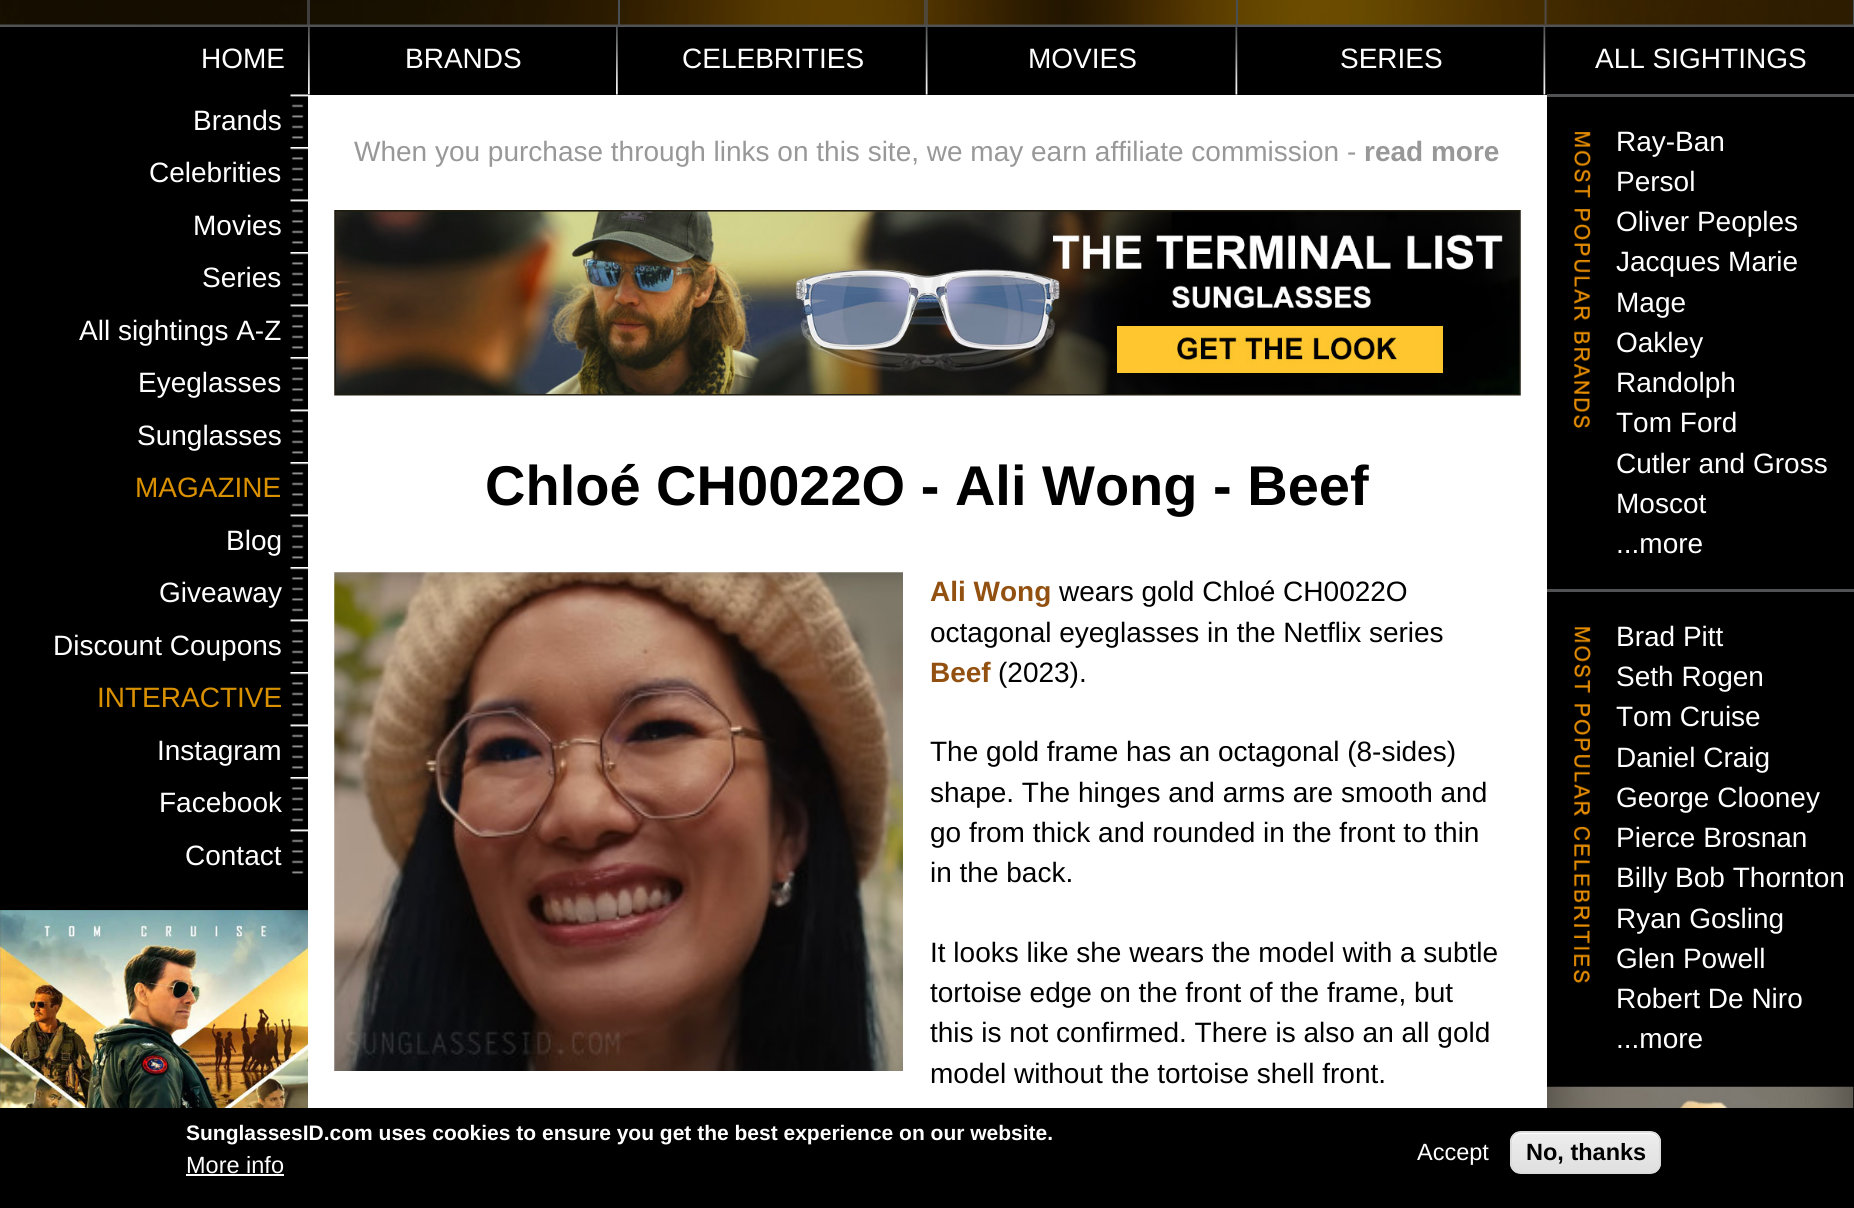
import math
import cairocffi as cairo

surface = cairo.ImageSurface(cairo.FORMAT_RGB24, 1854, 1208)
cr = cairo.Context(surface)
options = cairo.FontOptions()
options.set_hint_metrics(cairo.HINT_METRICS_OFF)
options.set_hint_style(cairo.HINT_STYLE_NONE)
cr.set_font_options(options)
cr.set_miter_limit(4)


def use_color(code):
    cr.set_source_rgb(*(v / 255 for v in bytes.fromhex(code[-6:])))


def round_rect(x, y, w, h, r):
    cr.new_sub_path()
    for i, (u, v) in enumerate([(x + w - r, y + h - r), (x + r, y + h - r), (x + r, y + r), (x + w - r, y + r)]):
        cr.arc(u, v, r, i * math.pi / 2, (i + 1) * math.pi / 2)
    cr.close_path()


def picture(path, x, y, w, h):
    cr.save()
    cr.set_source_surface(cairo.ImageSurface.create_from_png(path), x, y)
    cr.rectangle(x, y, w, h)
    cr.fill()
    cr.restore()


use_color("#000000")
cr.paint()
use_color("#505253")
cr.rectangle(0, 24, 1854, 3)
cr.fill()
picture("img1.png", 0, 0, 1853, 25)
use_color("#495053")
cr.rectangle(618, 0, 2, 25)
cr.fill()
cr.set_source_rgba(0.31, 0.314, 0.322, 0.73)
cr.rectangle(307, 0, 3, 25)
cr.fill()
use_color("#495053")
cr.rectangle(1236, 0, 2, 25)
cr.fill()
cr.set_source_rgba(0.31, 0.318, 0.322, 0.67)
cr.rectangle(924, 0, 4, 25)
cr.fill()
use_color("#495053")
cr.rectangle(1853, 0, 1, 25)
cr.fill()
picture("img2.png", 1544, 0, 4, 25)
picture("img3.png", 308, 27, 2, 68)
cr.select_font_face("Liberation Sans")
cr.set_font_size(28)
use_color("#ffffff")
cr.move_to(201, 68)
cr.show_text("HOME")
picture("img3.png", 616, 27, 2, 68)
cr.move_to(405, 68)
cr.show_text("BRANDS")
picture("img4.png", 925, 27, 3, 68)
cr.move_to(682, 68)
cr.show_text("CELEBRITIES")
picture("img5.png", 1235, 27, 3, 68)
cr.move_to(1028, 68)
cr.show_text("MOVIES")
picture("img5.png", 1543, 27, 3, 68)
cr.move_to(1340, 68)
cr.show_text("SERIES")
cr.move_to(1595, 68)
cr.show_text("ALL SIGHTINGS")
picture("img6.png", 290, 94, 18, 45)
cr.move_to(193, 130)
cr.show_text("Brands")
picture("img7.png", 290, 147, 18, 45)
cr.move_to(149, 182)
cr.show_text("Celebrities")
picture("img6.png", 290, 199, 18, 45)
cr.move_to(193, 235)
cr.show_text("Movies")
picture("img7.png", 290, 252, 18, 45)
cr.move_to(202, 287)
cr.show_text("Series")
picture("img6.png", 290, 304, 18, 45)
cr.move_to(79, 340)
cr.show_text("All sightings A-Z")
picture("img7.png", 290, 357, 18, 45)
cr.move_to(138, 392)
cr.show_text("Eyeglasses")
picture("img6.png", 290, 409, 18, 45)
cr.move_to(137, 445)
cr.show_text("Sunglasses")
picture("img7.png", 290, 462, 18, 45)
use_color("#da9100")
cr.move_to(135, 497)
cr.show_text("MAGAZINE")
picture("img6.png", 290, 514, 18, 45)
use_color("#ffffff")
cr.move_to(226, 550)
cr.show_text("Blog")
picture("img7.png", 290, 567, 18, 45)
cr.move_to(159, 602)
cr.show_text("Giveaway")
picture("img6.png", 290, 619, 18, 45)
cr.move_to(53, 655)
cr.show_text("Discount Coupons")
picture("img7.png", 290, 672, 18, 45)
use_color("#da9100")
cr.move_to(97, 707)
cr.show_text("INTERACTIVE")
picture("img6.png", 290, 724, 18, 45)
use_color("#ffffff")
cr.move_to(157, 760)
cr.show_text("Instagram")
picture("img7.png", 290, 777, 18, 45)
cr.move_to(159, 812)
cr.show_text("Facebook")
picture("img6.png", 290, 829, 18, 45)
cr.move_to(185, 865)
cr.show_text("Contact")
picture("img8.png", 0, 910, 308, 198)
cr.rectangle(308, 95, 1239, 1013)
cr.fill()
use_color("#989898")
cr.move_to(354, 161)
cr.show_text("When you purchase through links on this site, we may earn affiliate commission -")
cr.select_font_face("Liberation Sans", cairo.FONT_SLANT_NORMAL, cairo.FONT_WEIGHT_BOLD)
cr.move_to(1364, 161)
cr.show_text("read more")
picture("img9.png", 334, 210, 1187, 186)
cr.set_font_size(56)
use_color("#000000")
cr.move_to(485, 505)
cr.show_text("Chloé CH0022O - Ali Wong - Beef")
picture("img10.png", 334, 572, 569, 499)
cr.set_font_size(28)
use_color("#925111")
cr.move_to(930, 601)
cr.show_text("Ali Wong")
cr.select_font_face("Liberation Sans")
use_color("#000000")
cr.move_to(1059, 601)
cr.show_text("wears gold Chloé CH0022O")
cr.move_to(930, 642)
cr.show_text("octagonal eyeglasses in the Netflix series")
cr.select_font_face("Liberation Sans", cairo.FONT_SLANT_NORMAL, cairo.FONT_WEIGHT_BOLD)
use_color("#925111")
cr.move_to(930, 682)
cr.show_text("Beef")
cr.select_font_face("Liberation Sans")
use_color("#000000")
cr.move_to(998, 682)
cr.show_text("(2023).")
cr.move_to(930, 761)
cr.show_text("The gold frame has an octagonal (8-sides)")
cr.move_to(930, 802)
cr.show_text("shape. The hinges and arms are smooth and")
cr.move_to(930, 842)
cr.show_text("go from thick and rounded in the front to thin")
cr.move_to(930, 882)
cr.show_text("in the back.")
cr.move_to(930, 962)
cr.show_text("It looks like she wears the model with a subtle")
cr.move_to(930, 1002)
cr.show_text("tortoise edge on the front of the frame, but")
cr.move_to(930, 1042)
cr.show_text("this is not confirmed. There is also an all gold")
cr.move_to(930, 1083)
cr.show_text("model without the tortoise shell front.")
use_color("#505253")
cr.rectangle(1547, 94, 307, 3)
cr.fill()
picture("img11.png", 1573, 132, 18, 296)
use_color("#ffffff")
cr.move_to(1616, 151)
cr.show_text("Ray-Ban")
cr.move_to(1616, 191)
cr.show_text("Persol")
cr.move_to(1616, 231)
cr.show_text("Oliver Peoples")
cr.move_to(1616, 271)
cr.show_text("Jacques Marie")
cr.move_to(1616, 312)
cr.show_text("Mage")
cr.move_to(1616, 352)
cr.show_text("Oakley")
cr.move_to(1616, 392)
cr.show_text("Randolph")
cr.move_to(1616, 432)
cr.show_text("Tom Ford")
cr.move_to(1616, 473)
cr.show_text("Cutler and Gross")
cr.move_to(1616, 513)
cr.show_text("Moscot")
cr.move_to(1616, 553)
cr.show_text("...more")
use_color("#505253")
cr.rectangle(1547, 589, 307, 3)
cr.fill()
picture("img12.png", 1573, 627, 18, 356)
use_color("#ffffff")
cr.move_to(1616, 646)
cr.show_text("Brad Pitt")
cr.move_to(1616, 686)
cr.show_text("Seth Rogen")
cr.move_to(1616, 726)
cr.show_text("Tom Cruise")
cr.move_to(1616, 767)
cr.show_text("Daniel Craig")
cr.move_to(1616, 807)
cr.show_text("George Clooney")
cr.move_to(1616, 847)
cr.show_text("Pierce Brosnan")
cr.move_to(1616, 887)
cr.show_text("Billy Bob Thornton")
cr.move_to(1616, 928)
cr.show_text("Ryan Gosling")
cr.move_to(1616, 968)
cr.show_text("Glen Powell")
cr.move_to(1616, 1008)
cr.show_text("Robert De Niro")
cr.move_to(1616, 1048)
cr.show_text("...more")
picture("img13.png", 1547, 1086, 307, 22)
cr.select_font_face("Liberation Sans", cairo.FONT_SLANT_NORMAL, cairo.FONT_WEIGHT_BOLD)
cr.set_font_size(21)
cr.move_to(186, 1140)
cr.show_text("SunglassesID.com uses cookies to ensure you get the best experience on our website.")
cr.select_font_face("Liberation Sans")
cr.set_font_size(23.5)
cr.move_to(186, 1173)
cr.show_text("More info")
cr.rectangle(186, 1174, 98, 2)
cr.fill()
cr.move_to(1417, 1160)
cr.show_text("Accept")
cr.save()
round_rect(1510, 1131, 151, 43, 11)
cr.clip()
gradient = cairo.LinearGradient(1586, 1132, 1586, 1173)
gradient.add_color_stop_rgba(0.05, 0.929, 0.929, 0.929, 1)
gradient.add_color_stop_rgba(1, 0.875, 0.875, 0.875, 1)
cr.set_source(gradient)
cr.rectangle(1510, 1132, 151, 41)
cr.fill()
cr.restore()
cr.new_path()
cr.move_to(1521, 1134)
cr.line_to(1650, 1134)
cr.curve_to(1655, 1134, 1659, 1138, 1659, 1143)
cr.line_to(1659, 1141)
cr.curve_to(1659, 1136, 1655, 1132, 1650, 1132)
cr.line_to(1521, 1132)
cr.curve_to(1516, 1132, 1512, 1136, 1512, 1141)
cr.line_to(1512, 1143)
cr.curve_to(1512, 1138, 1516, 1134, 1521, 1134)
cr.close_path()
cr.fill()
round_rect(1511, 1132, 149, 41, 10)
use_color("#dcdcdc")
cr.stroke()
cr.select_font_face("Liberation Sans", cairo.FONT_SLANT_NORMAL, cairo.FONT_WEIGHT_BOLD)
use_color("#000000")
cr.move_to(1526, 1160)
cr.show_text("No, thanks")
surface.write_to_png("result.png")
